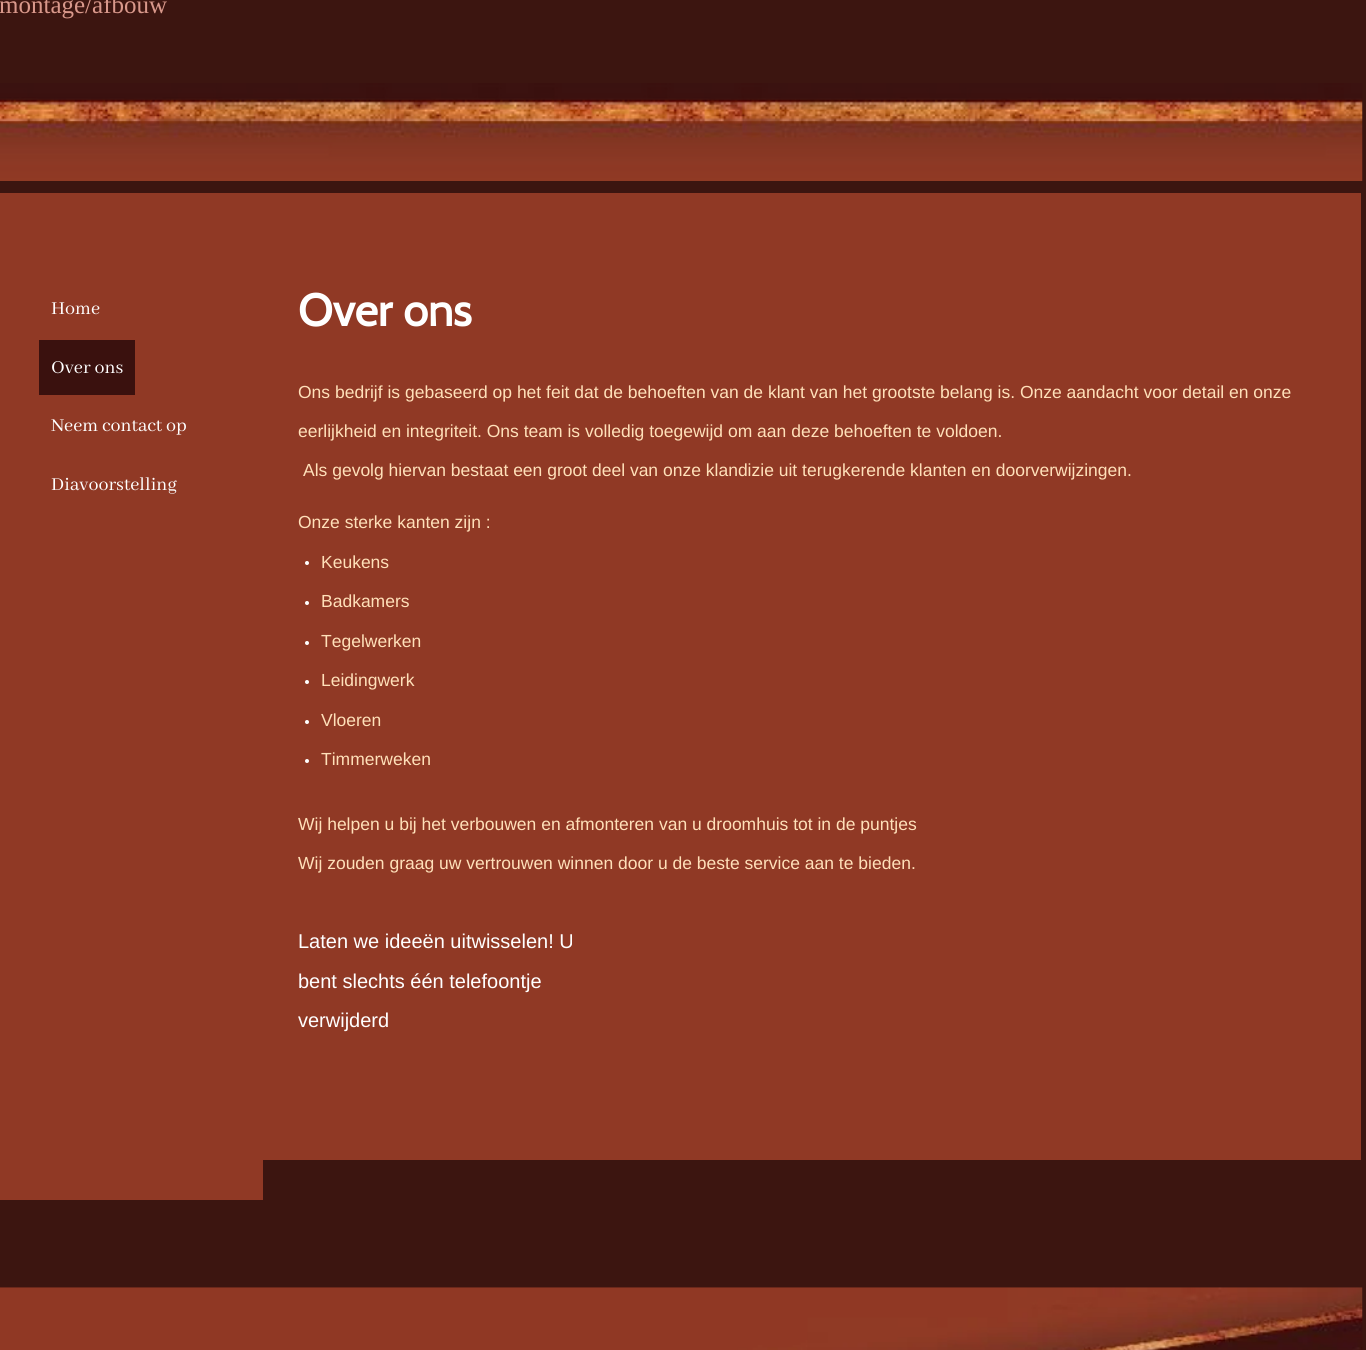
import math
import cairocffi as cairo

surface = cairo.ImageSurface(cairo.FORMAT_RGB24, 1366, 1350)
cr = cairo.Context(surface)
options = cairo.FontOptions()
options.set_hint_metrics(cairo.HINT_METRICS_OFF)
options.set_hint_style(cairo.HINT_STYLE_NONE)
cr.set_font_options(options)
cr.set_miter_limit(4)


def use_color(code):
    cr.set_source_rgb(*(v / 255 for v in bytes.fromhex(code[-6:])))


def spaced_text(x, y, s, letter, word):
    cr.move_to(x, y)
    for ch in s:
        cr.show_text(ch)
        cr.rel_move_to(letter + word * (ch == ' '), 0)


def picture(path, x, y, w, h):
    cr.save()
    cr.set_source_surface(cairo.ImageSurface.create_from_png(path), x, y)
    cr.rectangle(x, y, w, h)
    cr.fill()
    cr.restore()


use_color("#3c1510")
cr.paint()
cr.select_font_face("Liberation Serif")
cr.set_font_size(25)
use_color("#d9988b")
cr.move_to(-1, 13)
cr.show_text("montage/afbouw")
picture("img1.png", 0, 83, 1363, 98)
use_color("#903925")
cr.rectangle(0, 193, 263, 1007)
cr.fill()
cr.select_font_face("Abhaya Libre")
cr.set_font_size(20)
use_color("#ffffff")
cr.move_to(51, 314)
cr.show_text("Home")
use_color("#3a110e")
cr.rectangle(39, 340, 96, 55)
cr.fill()
use_color("#ffffff")
cr.move_to(51, 373)
cr.show_text("Over ons")
cr.move_to(51, 431)
cr.show_text("Neem contact op")
cr.move_to(51, 490)
cr.show_text("Diavoorstelling")
use_color("#903925")
cr.rectangle(263, 193, 1098, 967)
cr.fill()
cr.select_font_face("Cabin", cairo.FONT_SLANT_NORMAL, cairo.FONT_WEIGHT_BOLD)
cr.set_font_size(45)
use_color("#ffffff")
spaced_text(298, 326, "Over ons", 0, 1)
cr.select_font_face("Liberation Sans")
cr.set_font_size(17.5)
use_color("#ffe0b9")
cr.move_to(298, 398)
cr.show_text("Ons bedrijf is gebaseerd op het feit dat de behoeften van de klant van het grootste belang is. Onze aandacht voor detail en onze")
cr.move_to(298, 437)
cr.show_text("eerlijkheid en integriteit. Ons team is volledig toegewijd om aan deze behoeften te voldoen.")
cr.move_to(303, 476)
cr.show_text("Als gevolg hiervan bestaat een groot deel van onze klandizie uit terugkerende klanten en doorverwijzingen.")
cr.move_to(298, 528)
cr.show_text("Onze sterke kanten zijn :")
use_color("#ffffff")
cr.new_path()
cr.arc(307, 563, 2, 0, 2 * math.pi)
cr.fill()
use_color("#ffe0b9")
cr.move_to(321, 568)
cr.show_text("Keukens")
use_color("#ffffff")
cr.new_path()
cr.arc(307, 603, 2, 0, 2 * math.pi)
cr.fill()
use_color("#ffe0b9")
cr.move_to(321, 607)
cr.show_text("Badkamers")
use_color("#ffffff")
cr.new_path()
cr.arc(307, 643, 2, 0, 2 * math.pi)
cr.fill()
use_color("#ffe0b9")
cr.move_to(321, 647)
cr.show_text("Tegelwerken")
use_color("#ffffff")
cr.new_path()
cr.arc(307, 682, 2, 0, 2 * math.pi)
cr.fill()
use_color("#ffe0b9")
cr.move_to(321, 686)
cr.show_text("Leidingwerk")
use_color("#ffffff")
cr.new_path()
cr.arc(307, 722, 2, 0, 2 * math.pi)
cr.fill()
use_color("#ffe0b9")
cr.move_to(321, 726)
cr.show_text("Vloeren")
use_color("#ffffff")
cr.new_path()
cr.arc(307, 761, 2, 0, 2 * math.pi)
cr.fill()
use_color("#ffe0b9")
cr.move_to(321, 765)
cr.show_text("Timmerweken")
cr.move_to(298, 830)
cr.show_text("Wij helpen u bij het verbouwen en afmonteren van u droomhuis tot in de puntjes")
cr.move_to(298, 869)
cr.show_text("Wij zouden graag uw vertrouwen winnen door u de beste service aan te bieden.")
cr.set_font_size(20)
use_color("#ffffff")
cr.move_to(298, 948)
cr.show_text("Laten we ideeën uitwisselen! U")
cr.move_to(298, 988)
cr.show_text("bent slechts één telefoontje")
cr.move_to(298, 1027)
cr.show_text("verwijderd")
picture("img2.png", 0, 1287, 1363, 63)
surface.write_to_png("result.png")
